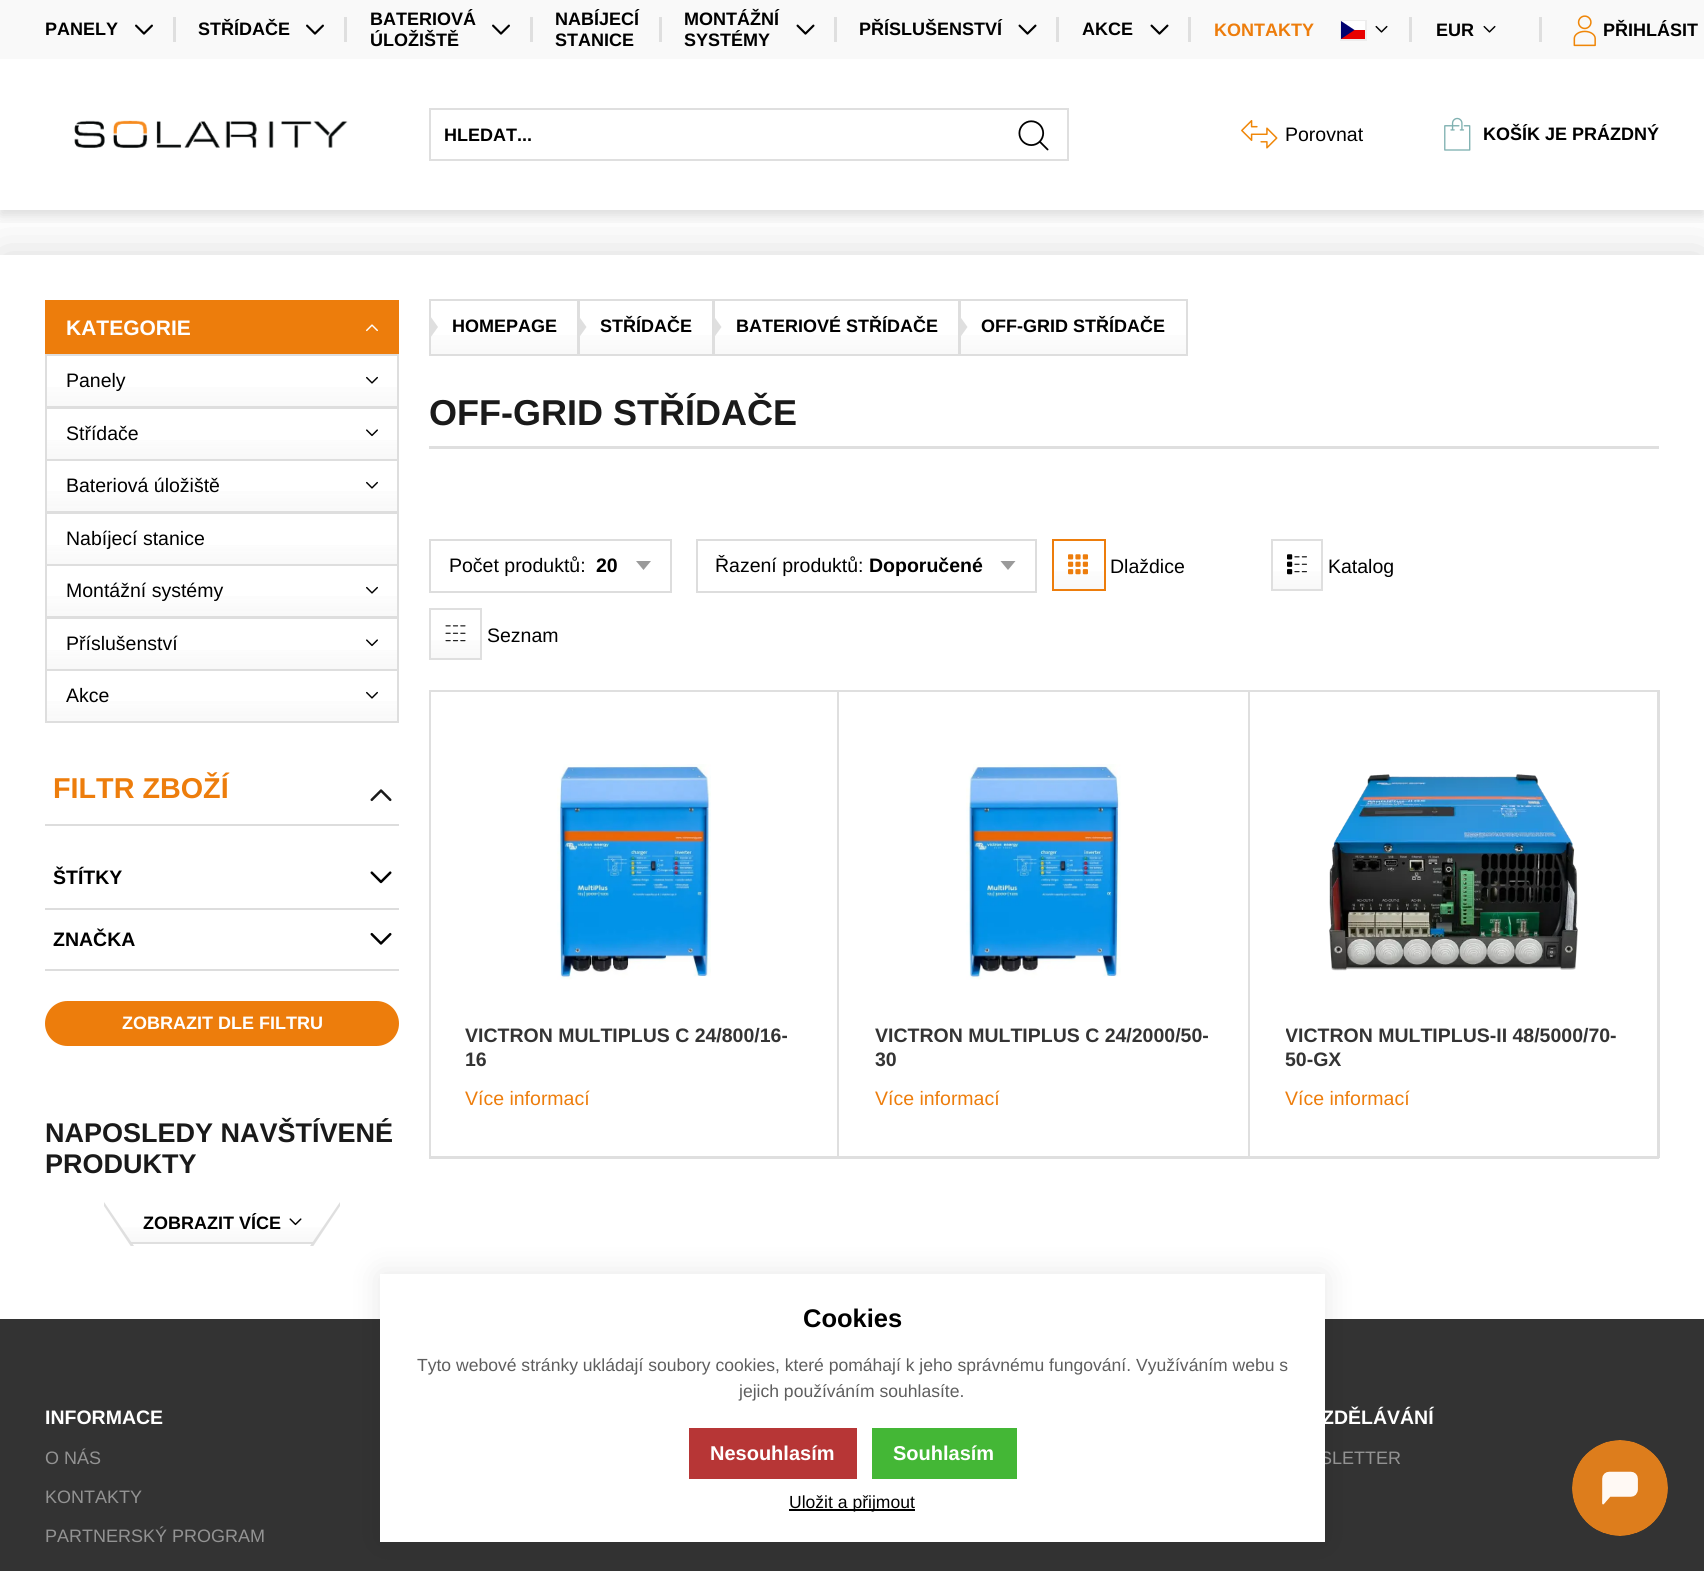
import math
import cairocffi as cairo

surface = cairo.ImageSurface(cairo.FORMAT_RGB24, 1704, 1571)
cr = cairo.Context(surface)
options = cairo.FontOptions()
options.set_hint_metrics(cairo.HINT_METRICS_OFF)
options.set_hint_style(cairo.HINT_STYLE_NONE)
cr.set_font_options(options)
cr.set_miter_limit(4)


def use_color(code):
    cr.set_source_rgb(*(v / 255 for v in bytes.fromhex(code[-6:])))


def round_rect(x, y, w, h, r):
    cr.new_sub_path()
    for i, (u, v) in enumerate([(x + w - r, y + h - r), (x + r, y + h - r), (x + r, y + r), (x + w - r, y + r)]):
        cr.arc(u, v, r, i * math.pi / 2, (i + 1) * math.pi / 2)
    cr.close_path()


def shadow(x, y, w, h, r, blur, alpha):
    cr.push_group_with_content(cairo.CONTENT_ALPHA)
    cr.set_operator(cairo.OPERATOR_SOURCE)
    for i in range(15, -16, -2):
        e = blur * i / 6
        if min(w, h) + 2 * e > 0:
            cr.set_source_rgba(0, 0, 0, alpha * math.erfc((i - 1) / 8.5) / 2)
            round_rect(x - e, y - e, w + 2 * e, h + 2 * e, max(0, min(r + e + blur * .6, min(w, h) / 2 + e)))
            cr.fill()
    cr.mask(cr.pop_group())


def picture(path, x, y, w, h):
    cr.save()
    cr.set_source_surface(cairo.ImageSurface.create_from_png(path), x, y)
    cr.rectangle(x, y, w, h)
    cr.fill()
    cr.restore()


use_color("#ffffff")
cr.paint()
cr.save()
cr.rectangle(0, 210, 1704, 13)
cr.clip()
use_color("#000000")
shadow(0, 5, 1704, 210, 0, 7, 0.15)
cr.restore()
use_color("#f9f9f9")
cr.rectangle(0, 0, 1704, 59)
cr.fill()
cr.select_font_face("Liberation Sans", cairo.FONT_SLANT_NORMAL, cairo.FONT_WEIGHT_BOLD)
cr.set_font_size(18)
use_color("#000000")
cr.move_to(45, 35)
cr.show_text("PANELY")
picture("img1.png", 135, 24, 18, 11)
use_color("#dfdfdf")
cr.rectangle(173, 17, 3, 25)
cr.fill()
use_color("#000000")
cr.move_to(198, 35)
cr.show_text("STŘÍDAČE")
picture("img1.png", 306, 24, 18, 11)
use_color("#dfdfdf")
cr.rectangle(344, 17, 3, 25)
cr.fill()
use_color("#000000")
cr.move_to(370, 25)
cr.show_text("BATERIOVÁ")
cr.move_to(370, 46)
cr.show_text("ÚLOŽIŠTĚ")
picture("img2.png", 492, 24, 18, 11)
use_color("#dfdfdf")
cr.rectangle(530, 17, 3, 25)
cr.fill()
use_color("#000000")
cr.move_to(555, 25)
cr.show_text("NABÍJECÍ")
cr.move_to(555, 46)
cr.show_text("STANICE")
use_color("#dfdfdf")
cr.rectangle(659, 17, 3, 25)
cr.fill()
use_color("#000000")
cr.move_to(684, 25)
cr.show_text("MONTÁŽNÍ")
cr.move_to(684, 46)
cr.show_text("SYSTÉMY")
picture("img3.png", 796, 24, 19, 11)
use_color("#dfdfdf")
cr.rectangle(834, 17, 3, 25)
cr.fill()
use_color("#000000")
cr.move_to(859, 35)
cr.show_text("PŘÍSLUŠENSTVÍ")
picture("img4.png", 1018, 24, 19, 11)
use_color("#dfdfdf")
cr.rectangle(1056, 17, 3, 25)
cr.fill()
use_color("#000000")
cr.move_to(1082, 35)
cr.show_text("AKCE")
picture("img4.png", 1150, 24, 19, 11)
use_color("#dfdfdf")
cr.rectangle(1188, 17, 3, 25)
cr.fill()
use_color("#ed7d0c")
cr.move_to(1214, 36)
cr.show_text("KONTAKTY")
cr.rectangle(1341, 21, 25, 19)
use_color("#ededed")
cr.stroke()
use_color("#e80000")
cr.rectangle(1341, 30, 24, 9)
cr.fill()
use_color("#ffffff")
cr.rectangle(1341, 21, 24, 9)
cr.fill()
use_color("#00006f")
cr.set_fill_rule(cairo.FILL_RULE_EVEN_ODD)
cr.new_path()
cr.move_to(1341, 21)
cr.line_to(1354.5, 30)
cr.line_to(1341, 39)
cr.close_path()
cr.fill()
picture("img5.png", 1375, 25, 13, 8)
use_color("#dfdfdf")
cr.rectangle(1409, 17, 3, 25)
cr.fill()
use_color("#000000")
cr.move_to(1436, 36)
cr.show_text("EUR")
picture("img5.png", 1483, 25, 13, 8)
use_color("#dfdfdf")
cr.rectangle(1539, 17, 3, 25)
cr.fill()
picture("img6.png", 1573, 15, 23, 32)
use_color("#000000")
cr.move_to(1603, 36)
cr.show_text("PŘIHLÁSIT")
picture("img7.png", 74, 120, 274, 28)
use_color("#dfdfdf")
cr.rectangle(429, 108, 639, 2)
cr.fill()
cr.rectangle(429, 159, 572, 2)
cr.fill()
cr.rectangle(429, 108, 2, 53)
cr.fill()
use_color("#000000")
cr.move_to(444, 141)
cr.show_text("HLEDAT...")
use_color("#dfdfdf")
cr.rectangle(1067, 108, 2, 53)
cr.fill()
cr.rectangle(1001, 159, 67, 2)
cr.fill()
picture("img8.png", 1018, 120, 31, 31)
picture("img9.png", 1241, 120, 37, 29)
cr.select_font_face("Liberation Sans")
cr.set_font_size(19.5)
use_color("#000000")
cr.move_to(1285, 141)
cr.show_text("Porovnat")
picture("img10.png", 1444, 117, 27, 34)
cr.select_font_face("Liberation Sans", cairo.FONT_SLANT_NORMAL, cairo.FONT_WEIGHT_BOLD)
cr.set_font_size(18)
cr.move_to(1483, 140)
cr.show_text("KOŠÍK JE PRÁZDNÝ")
use_color("#000000")
shadow(0, 255, 1704, 1064, 0, 24, 0.15)
use_color("#ffffff")
cr.rectangle(0, 255, 1704, 1064)
cr.fill()
use_color("#ed7d0c")
cr.rectangle(45, 300, 354, 54)
cr.fill()
cr.set_font_size(21)
use_color("#ffffff")
cr.move_to(66, 335)
cr.show_text("KATEGORIE")
picture("img11.png", 366, 324, 12, 8)
gradient = cairo.LinearGradient(222, 354, 222, 407)
gradient.add_color_stop_rgba(0, 1, 1, 1, 1)
gradient.add_color_stop_rgba(0.42, 1, 1, 1, 1)
gradient.add_color_stop_rgba(1, 0.973, 0.973, 0.973, 1)
cr.set_source(gradient)
cr.rectangle(47, 387, 350, 19)
cr.fill()
cr.rectangle(46, 355, 352, 52)
use_color("#dedede")
cr.stroke()
cr.select_font_face("Liberation Sans")
cr.set_font_size(19.5)
use_color("#000000")
cr.move_to(66, 387)
cr.show_text("Panely")
picture("img12.png", 366, 376, 12, 8)
gradient = cairo.LinearGradient(222, 407, 222, 459)
gradient.add_color_stop_rgba(0, 0, 0, 0, 0)
gradient.add_color_stop_rgba(0.42, 0.965, 0.965, 0.965, 0)
gradient.add_color_stop_rgba(1, 0.965, 0.965, 0.965, 0.76)
cr.set_source(gradient)
cr.rectangle(47, 440, 350, 19)
cr.fill()
cr.rectangle(46, 408, 352, 52)
use_color("#dedede")
cr.stroke()
use_color("#000000")
cr.move_to(66, 440)
cr.show_text("Střídače")
picture("img13.png", 366, 429, 12, 8)
gradient = cairo.LinearGradient(222, 459, 222, 512)
gradient.add_color_stop_rgba(0, 0, 0, 0, 0)
gradient.add_color_stop_rgba(0.42, 0.965, 0.965, 0.965, 0)
gradient.add_color_stop_rgba(1, 0.965, 0.965, 0.965, 0.76)
cr.set_source(gradient)
cr.rectangle(47, 491, 350, 20)
cr.fill()
cr.rectangle(46, 460, 352, 52)
use_color("#dedede")
cr.stroke()
use_color("#000000")
cr.move_to(66, 492)
cr.show_text("Bateriová úložiště")
picture("img14.png", 366, 481, 12, 8)
gradient = cairo.LinearGradient(222, 512, 222, 564)
gradient.add_color_stop_rgba(0, 0, 0, 0, 0)
gradient.add_color_stop_rgba(0.42, 0.965, 0.965, 0.965, 0)
gradient.add_color_stop_rgba(1, 0.965, 0.965, 0.965, 0.76)
cr.set_source(gradient)
cr.rectangle(47, 545, 350, 19)
cr.fill()
cr.rectangle(46, 513, 352, 52)
use_color("#dedede")
cr.stroke()
use_color("#000000")
cr.move_to(66, 545)
cr.show_text("Nabíjecí stanice")
gradient = cairo.LinearGradient(222, 564, 222, 617)
gradient.add_color_stop_rgba(0, 0, 0, 0, 0)
gradient.add_color_stop_rgba(0.42, 0.965, 0.965, 0.965, 0)
gradient.add_color_stop_rgba(1, 0.965, 0.965, 0.965, 0.76)
cr.set_source(gradient)
cr.rectangle(47, 596, 350, 20)
cr.fill()
cr.rectangle(46, 565, 352, 52)
use_color("#dedede")
cr.stroke()
use_color("#000000")
cr.move_to(66, 597)
cr.show_text("Montážní systémy")
picture("img14.png", 366, 586, 12, 8)
gradient = cairo.LinearGradient(222, 617, 222, 669)
gradient.add_color_stop_rgba(0, 0, 0, 0, 0)
gradient.add_color_stop_rgba(0.42, 0.965, 0.965, 0.965, 0)
gradient.add_color_stop_rgba(1, 0.965, 0.965, 0.965, 0.76)
cr.set_source(gradient)
cr.rectangle(47, 650, 350, 19)
cr.fill()
cr.rectangle(46, 618, 352, 52)
use_color("#dedede")
cr.stroke()
use_color("#000000")
cr.move_to(66, 650)
cr.show_text("Příslušenství")
picture("img13.png", 366, 639, 12, 8)
gradient = cairo.LinearGradient(222, 669, 222, 722)
gradient.add_color_stop_rgba(0, 0, 0, 0, 0)
gradient.add_color_stop_rgba(0.42, 0.965, 0.965, 0.965, 0)
gradient.add_color_stop_rgba(1, 0.965, 0.965, 0.965, 0.76)
cr.set_source(gradient)
cr.rectangle(47, 701, 350, 20)
cr.fill()
cr.rectangle(46, 670, 352, 52)
use_color("#dedede")
cr.stroke()
use_color("#000000")
cr.move_to(66, 702)
cr.show_text("Akce")
picture("img14.png", 366, 691, 12, 8)
use_color("#dddddd")
cr.rectangle(45, 824, 354, 2)
cr.fill()
cr.select_font_face("Liberation Sans", cairo.FONT_SLANT_NORMAL, cairo.FONT_WEIGHT_BOLD)
cr.set_font_size(28.75)
use_color("#ed7d0c")
cr.move_to(53, 798)
cr.show_text("FILTR ZBOŽÍ")
picture("img15.png", 370, 789, 22, 13)
use_color("#dddddd")
cr.rectangle(45, 908, 354, 2)
cr.fill()
cr.set_font_size(19.5)
use_color("#000000")
cr.move_to(53, 884)
cr.show_text("ŠTÍTKY")
picture("img16.png", 370, 871, 22, 13)
use_color("#dddddd")
cr.rectangle(45, 969, 354, 2)
cr.fill()
use_color("#000000")
cr.move_to(53, 946)
cr.show_text("ZNAČKA")
picture("img17.png", 370, 932, 22, 13)
use_color("#ed7d0c")
round_rect(46, 1002, 352, 43, 21.5)
cr.fill_preserve()
cr.stroke()
cr.set_font_size(18)
use_color("#ffffff")
cr.move_to(122, 1029)
cr.show_text("ZOBRAZIT DLE FILTRU")
cr.set_font_size(27)
use_color("#1a1a1a")
cr.move_to(45, 1142)
cr.show_text("NAPOSLEDY NAVŠTÍVENÉ")
cr.move_to(45, 1173)
cr.show_text("PRODUKTY")
gradient = cairo.LinearGradient(222, 1203, 222, 1242)
gradient.add_color_stop_rgba(0, 1, 1, 1, 1)
gradient.add_color_stop_rgba(0.42, 1, 1, 1, 1)
gradient.add_color_stop_rgba(1, 0.973, 0.973, 0.973, 1)
cr.set_source(gradient)
cr.rectangle(104, 1227, 237, 15)
cr.fill()
use_color("#dfdfdf")
cr.rectangle(131, 1242, 182, 2)
cr.fill()
cr.set_fill_rule(cairo.FILL_RULE_WINDING)
cr.new_path()
cr.move_to(104, 1246)
cr.line_to(104, 1202)
cr.line_to(134, 1246)
cr.close_path()
cr.fill()
cr.new_path()
cr.move_to(340, 1202)
cr.line_to(340, 1246)
cr.line_to(310, 1246)
cr.close_path()
cr.fill()
use_color("#ffffff")
cr.new_path()
cr.move_to(102, 1248)
cr.line_to(102, 1203)
cr.line_to(132, 1248)
cr.close_path()
cr.fill()
cr.new_path()
cr.move_to(342, 1203)
cr.line_to(342, 1248)
cr.line_to(312, 1248)
cr.close_path()
cr.fill()
cr.set_font_size(18)
use_color("#000000")
cr.move_to(143, 1229)
cr.show_text("ZOBRAZIT VÍCE")
picture("img18.png", 289, 1218, 13, 8)
gradient = cairo.LinearGradient(503, 300, 503, 356)
gradient.add_color_stop_rgba(0, 1, 1, 1, 1)
gradient.add_color_stop_rgba(0.42, 1, 1, 1, 1)
gradient.add_color_stop_rgba(1, 0.973, 0.973, 0.973, 1)
cr.set_source(gradient)
cr.rectangle(431, 335, 146, 19)
cr.fill()
cr.rectangle(430, 300, 148, 55)
use_color("#dedede")
cr.stroke()
use_color("#dfdfdf")
cr.new_path()
cr.move_to(430.5, 337.5)
cr.line_to(430.5, 316.5)
cr.line_to(438, 327)
cr.close_path()
cr.fill()
use_color("#000000")
cr.move_to(452, 332)
cr.show_text("HOMEPAGE")
gradient = cairo.LinearGradient(645, 300, 645, 356)
gradient.add_color_stop_rgba(0, 1, 1, 1, 1)
gradient.add_color_stop_rgba(0.42, 1, 1, 1, 1)
gradient.add_color_stop_rgba(1, 0.973, 0.973, 0.973, 1)
cr.set_source(gradient)
cr.rectangle(580, 335, 132, 19)
cr.fill()
cr.rectangle(579, 300, 134, 55)
use_color("#dedede")
cr.stroke()
use_color("#dfdfdf")
cr.new_path()
cr.move_to(579, 337.5)
cr.line_to(579, 316.5)
cr.line_to(586.5, 327)
cr.close_path()
cr.fill()
use_color("#000000")
cr.move_to(600, 332)
cr.show_text("STŘÍDAČE")
gradient = cairo.LinearGradient(836, 300, 836, 356)
gradient.add_color_stop_rgba(0, 1, 1, 1, 1)
gradient.add_color_stop_rgba(0.42, 1, 1, 1, 1)
gradient.add_color_stop_rgba(1, 0.973, 0.973, 0.973, 1)
cr.set_source(gradient)
cr.rectangle(715, 335, 243, 19)
cr.fill()
cr.rectangle(714, 300, 245, 55)
use_color("#dedede")
cr.stroke()
use_color("#dfdfdf")
cr.new_path()
cr.move_to(714, 337.5)
cr.line_to(714, 316.5)
cr.line_to(721.5, 327)
cr.close_path()
cr.fill()
use_color("#000000")
cr.move_to(736, 332)
cr.show_text("BATERIOVÉ STŘÍDAČE")
gradient = cairo.LinearGradient(1073, 300, 1073, 356)
gradient.add_color_stop_rgba(0, 1, 1, 1, 1)
gradient.add_color_stop_rgba(0.42, 1, 1, 1, 1)
gradient.add_color_stop_rgba(1, 0.973, 0.973, 0.973, 1)
cr.set_source(gradient)
cr.rectangle(961, 335, 225, 19)
cr.fill()
cr.rectangle(960, 300, 227, 55)
use_color("#dedede")
cr.stroke()
use_color("#dfdfdf")
cr.new_path()
cr.move_to(960, 337.5)
cr.line_to(960, 316.5)
cr.line_to(967.5, 327)
cr.close_path()
cr.fill()
use_color("#000000")
cr.move_to(981, 332)
cr.show_text("OFF-GRID STŘÍDAČE")
cr.set_font_size(36)
use_color("#1a1a1a")
cr.move_to(429, 425)
cr.show_text("OFF-GRID STŘÍDAČE")
use_color("#dfdfdf")
cr.rectangle(429, 446, 1230, 3)
cr.fill()
use_color("#9a9a9a")
cr.new_path()
cr.move_to(643.5, 570)
cr.line_to(636, 561)
cr.line_to(651, 561)
cr.close_path()
cr.fill()
cr.rectangle(430, 540, 241, 52)
use_color("#dddddd")
cr.stroke()
cr.select_font_face("Liberation Sans")
cr.set_font_size(19.5)
use_color("#000000")
cr.move_to(449, 572)
cr.show_text("Počet produktů:")
cr.select_font_face("Liberation Sans", cairo.FONT_SLANT_NORMAL, cairo.FONT_WEIGHT_BOLD)
cr.move_to(596, 572)
cr.show_text("20")
use_color("#9a9a9a")
cr.new_path()
cr.move_to(1008, 570)
cr.line_to(1000.5, 561)
cr.line_to(1015.5, 561)
cr.close_path()
cr.fill()
cr.rectangle(697, 540, 339, 52)
use_color("#dddddd")
cr.stroke()
cr.select_font_face("Liberation Sans")
use_color("#000000")
cr.move_to(715, 572)
cr.show_text("Řazení produktů:")
cr.select_font_face("Liberation Sans", cairo.FONT_SLANT_NORMAL, cairo.FONT_WEIGHT_BOLD)
cr.move_to(869, 572)
cr.show_text("Doporučené")
gradient = cairo.LinearGradient(1079, 540, 1079, 590)
gradient.add_color_stop_rgba(0, 1, 1, 1, 1)
gradient.add_color_stop_rgba(0.42, 1, 1, 1, 1)
gradient.add_color_stop_rgba(1, 0.973, 0.973, 0.973, 1)
cr.set_source(gradient)
cr.rectangle(1054, 571, 50, 18)
cr.fill()
cr.rectangle(1053, 540, 52, 50)
use_color("#ed7d0c")
cr.stroke()
picture("img19.png", 1068, 554, 20, 21)
cr.select_font_face("Liberation Sans")
use_color("#000000")
cr.move_to(1110, 573)
cr.show_text("Dlaždice")
gradient = cairo.LinearGradient(1297, 540, 1297, 590)
gradient.add_color_stop_rgba(0, 1, 1, 1, 1)
gradient.add_color_stop_rgba(0.42, 1, 1, 1, 1)
gradient.add_color_stop_rgba(1, 0.973, 0.973, 0.973, 1)
cr.set_source(gradient)
cr.rectangle(1273, 571, 48, 18)
cr.fill()
cr.rectangle(1272, 540, 50, 50)
use_color("#dfdfdf")
cr.stroke()
picture("img20.png", 1287, 554, 20, 21)
use_color("#000000")
cr.move_to(1328, 573)
cr.show_text("Katalog")
gradient = cairo.LinearGradient(455, 609, 455, 659)
gradient.add_color_stop_rgba(0, 1, 1, 1, 1)
gradient.add_color_stop_rgba(0.42, 1, 1, 1, 1)
gradient.add_color_stop_rgba(1, 0.973, 0.973, 0.973, 1)
cr.set_source(gradient)
cr.rectangle(431, 640, 49, 18)
cr.fill()
cr.rectangle(430, 609, 51, 50)
use_color("#dfdfdf")
cr.stroke()
picture("img21.png", 445, 625, 21, 17)
use_color("#000000")
cr.move_to(487, 642)
cr.show_text("Seznam")
use_color("#dfdfdf")
cr.rectangle(837, 690, 2, 468)
cr.fill()
cr.rectangle(1248, 690, 2, 468)
cr.fill()
cr.rectangle(430, 691, 1228, 466)
cr.stroke()
cr.rectangle(429, 1158, 1230, 1)
cr.fill()
picture("img22.png", 557, 764, 154, 216)
cr.select_font_face("Liberation Sans", cairo.FONT_SLANT_NORMAL, cairo.FONT_WEIGHT_BOLD)
use_color("#343434")
cr.move_to(465, 1042)
cr.show_text("VICTRON MULTIPLUS C 24/800/16-")
cr.move_to(465, 1066)
cr.show_text("16")
cr.select_font_face("Liberation Sans")
use_color("#ed7d0c")
cr.move_to(465, 1105)
cr.show_text("Více informací")
picture("img23.png", 966, 764, 155, 216)
cr.select_font_face("Liberation Sans", cairo.FONT_SLANT_NORMAL, cairo.FONT_WEIGHT_BOLD)
use_color("#343434")
cr.move_to(875, 1042)
cr.show_text("VICTRON MULTIPLUS C 24/2000/50-")
cr.move_to(875, 1066)
cr.show_text("30")
cr.select_font_face("Liberation Sans")
use_color("#ed7d0c")
cr.move_to(875, 1105)
cr.show_text("Více informací")
use_color("#dfdfdf")
cr.rectangle(1659, 690, 1, 468)
cr.fill()
picture("img24.png", 1329, 774, 249, 197)
cr.save()
cr.rectangle(1286, 1025, 336, 45)
cr.clip()
cr.select_font_face("Liberation Sans", cairo.FONT_SLANT_NORMAL, cairo.FONT_WEIGHT_BOLD)
use_color("#343434")
cr.move_to(1285, 1042)
cr.show_text("VICTRON MULTIPLUS-II 48/5000/70-")
cr.restore()
cr.select_font_face("Liberation Sans", cairo.FONT_SLANT_NORMAL, cairo.FONT_WEIGHT_BOLD)
use_color("#343434")
cr.move_to(1285, 1066)
cr.show_text("50-GX")
cr.select_font_face("Liberation Sans")
use_color("#ed7d0c")
cr.move_to(1285, 1105)
cr.show_text("Více informací")
use_color("#333333")
cr.rectangle(0, 1319, 1704, 252)
cr.fill()
use_color("#000000")
shadow(380, 1274, 945, 268, 0, 15, 0.1)
cr.set_font_size(18)
use_color("#939393")
cr.move_to(1320, 1464)
cr.show_text("SLETTER")
use_color("#ffffff")
cr.rectangle(380, 1274, 945, 268)
cr.fill()
cr.select_font_face("Liberation Sans", cairo.FONT_SLANT_NORMAL, cairo.FONT_WEIGHT_BOLD)
cr.set_font_size(25.5)
use_color("#000000")
cr.move_to(803, 1327)
cr.show_text("Cookies")
cr.select_font_face("Liberation Sans")
cr.set_font_size(17.55)
use_color("#5e5e5e")
cr.move_to(417, 1371)
cr.show_text("Tyto webové stránky ukládají soubory cookies, které pomáhají k jeho správnému fungování. Využíváním webu s")
cr.move_to(739, 1397)
cr.show_text("jejich používáním souhlasíte.")
use_color("#b73636")
cr.rectangle(689, 1428, 168, 51)
cr.fill()
cr.select_font_face("Liberation Sans", cairo.FONT_SLANT_NORMAL, cairo.FONT_WEIGHT_BOLD)
cr.set_font_size(20)
use_color("#ffffff")
cr.move_to(710, 1460)
cr.show_text("Nesouhlasím")
use_color("#44b736")
cr.rectangle(872, 1428, 145, 51)
cr.fill()
use_color("#ffffff")
cr.move_to(893, 1460)
cr.show_text("Souhlasím")
use_color("#000000")
cr.rectangle(789, 1509, 126, 2)
cr.fill()
cr.select_font_face("Liberation Sans")
cr.set_font_size(17.55)
cr.move_to(789, 1508)
cr.show_text("Uložit a přijmout")
cr.select_font_face("Liberation Sans", cairo.FONT_SLANT_NORMAL, cairo.FONT_WEIGHT_BOLD)
cr.set_font_size(19.5)
use_color("#ffffff")
cr.move_to(45, 1424)
cr.show_text("INFORMACE")
cr.select_font_face("Liberation Sans")
cr.set_font_size(18)
use_color("#939393")
cr.move_to(45, 1464)
cr.show_text("O NÁS")
cr.move_to(45, 1503)
cr.show_text("KONTAKTY")
cr.move_to(45, 1542)
cr.show_text("PARTNERSKÝ PROGRAM")
cr.select_font_face("Liberation Sans", cairo.FONT_SLANT_NORMAL, cairo.FONT_WEIGHT_BOLD)
cr.set_font_size(19.5)
use_color("#ffffff")
cr.move_to(1322, 1424)
cr.show_text("ZDĚLÁVÁNÍ")
picture("img25.png", 1572, 1440, 96, 96)
surface.write_to_png("result.png")
